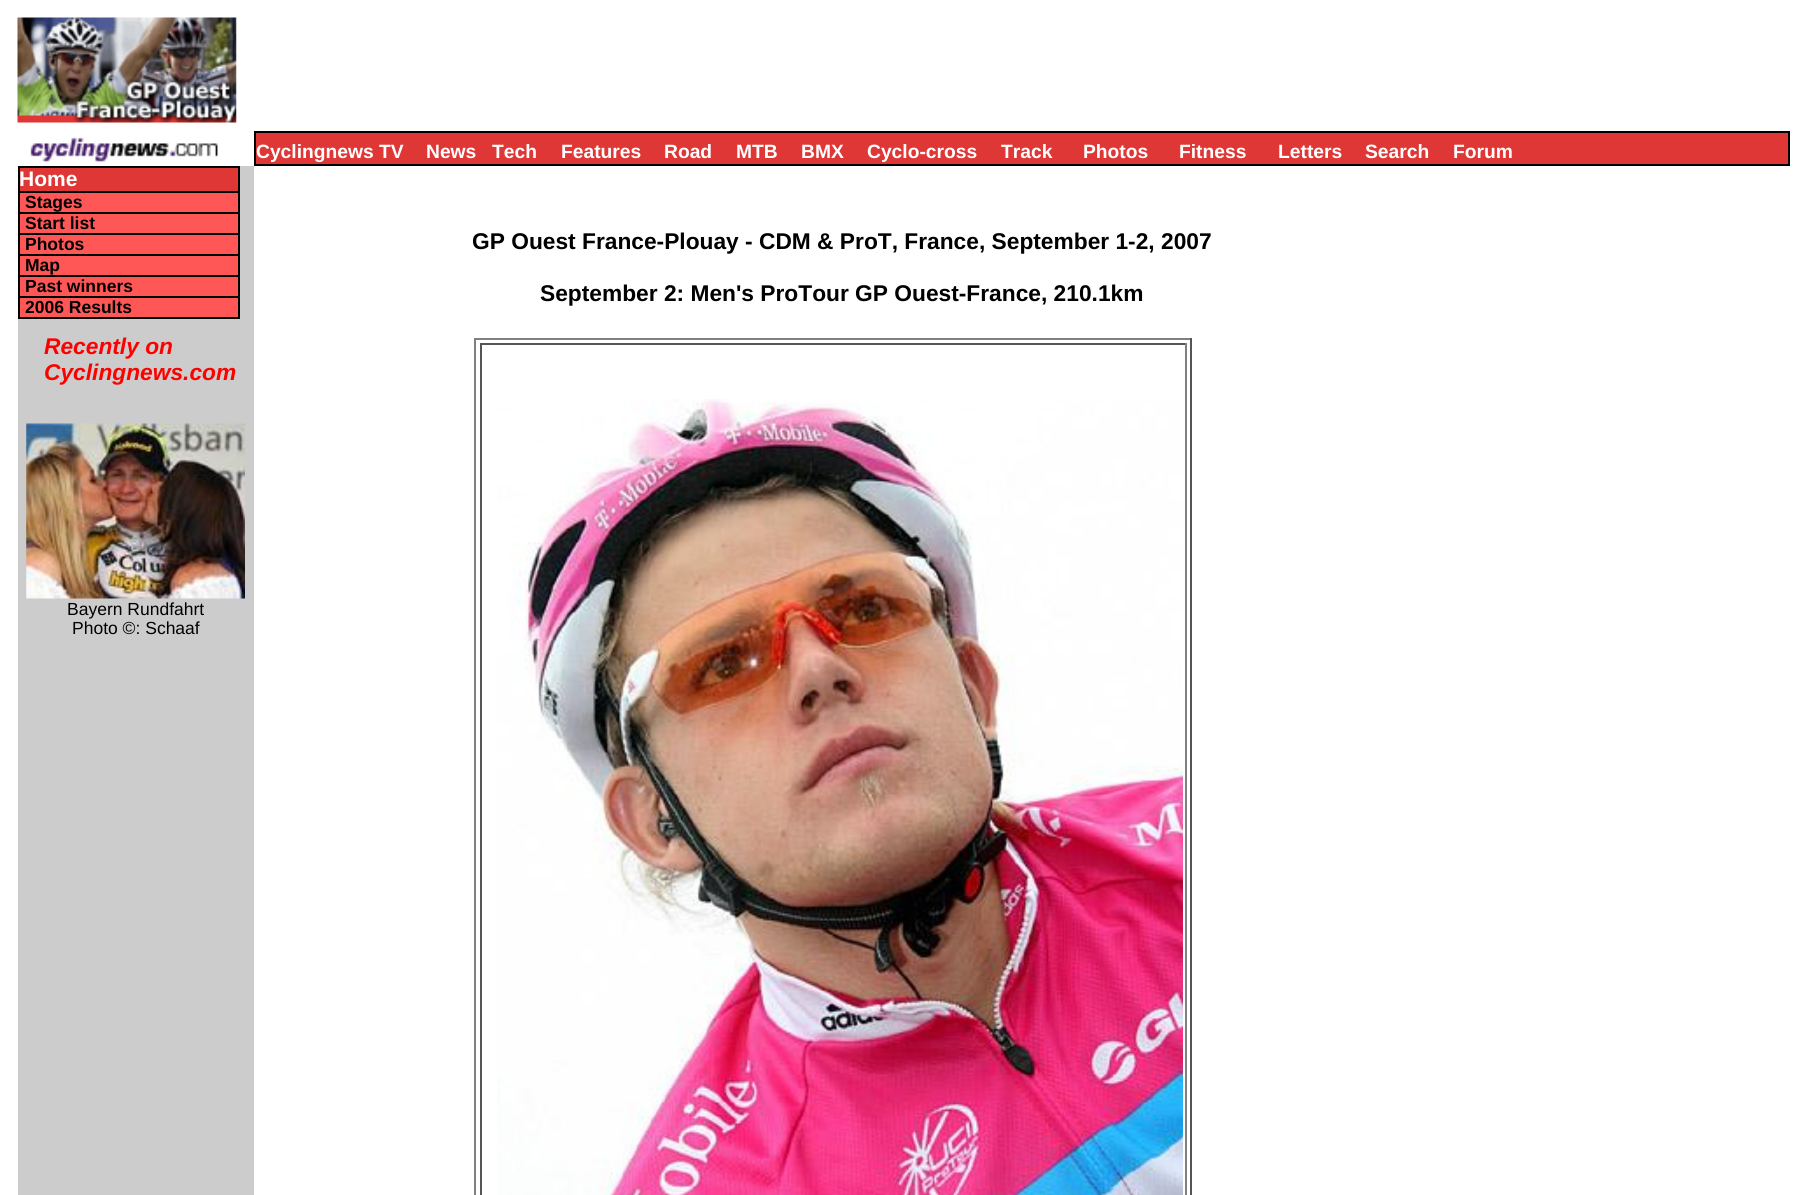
import math
import cairocffi as cairo

surface = cairo.ImageSurface(cairo.FORMAT_RGB24, 1798, 1195)
cr = cairo.Context(surface)
options = cairo.FontOptions()
options.set_hint_metrics(cairo.HINT_METRICS_OFF)
options.set_hint_style(cairo.HINT_STYLE_NONE)
cr.set_font_options(options)
cr.set_miter_limit(4)


def use_color(code):
    cr.set_source_rgb(*(v / 255 for v in bytes.fromhex(code[-6:])))


def picture(path, x, y, w, h):
    cr.save()
    cr.set_source_surface(cairo.ImageSurface.create_from_png(path), x, y)
    cr.rectangle(x, y, w, h)
    cr.fill()
    cr.restore()


use_color("#ffffff")
cr.paint()
picture("img1.png", 17, 17, 220, 106)
picture("img2.png", 30, 137, 188, 25)
use_color("#df3735")
cr.rectangle(255, 132, 1534, 33)
cr.fill_preserve()
use_color("#000000")
cr.stroke()
cr.select_font_face("Liberation Sans", cairo.FONT_SLANT_NORMAL, cairo.FONT_WEIGHT_BOLD)
cr.set_font_size(19.25)
use_color("#ffffff")
cr.move_to(256, 158)
cr.show_text("Cyclingnews TV")
cr.move_to(426, 158)
cr.show_text("News")
cr.move_to(492, 158)
cr.show_text("Tech")
cr.move_to(561, 158)
cr.show_text("Features")
cr.move_to(664, 158)
cr.show_text("Road")
cr.move_to(736, 158)
cr.show_text("MTB")
cr.move_to(801, 158)
cr.show_text("BMX")
cr.move_to(867, 158)
cr.show_text("Cyclo-cross")
cr.move_to(1001, 158)
cr.show_text("Track")
cr.move_to(1083, 158)
cr.show_text("Photos")
cr.move_to(1179, 158)
cr.show_text("Fitness")
cr.move_to(1278, 158)
cr.show_text("Letters")
cr.move_to(1365, 158)
cr.show_text("Search")
cr.move_to(1453, 158)
cr.show_text("Forum")
use_color("#cccccc")
cr.rectangle(18, 166, 236, 1029)
cr.fill()
use_color("#000000")
cr.rectangle(18, 166, 222, 2)
cr.fill()
use_color("#df3735")
cr.rectangle(20, 168, 218, 23)
cr.fill()
use_color("#000000")
cr.rectangle(238, 168, 2, 151)
cr.fill()
cr.rectangle(18, 191, 222, 2)
cr.fill()
cr.rectangle(18, 168, 2, 25)
cr.fill()
cr.set_font_size(21)
use_color("#ffffff")
cr.move_to(19, 186)
cr.show_text("Home")
use_color("#ff5755")
cr.rectangle(20, 193, 218, 19)
cr.fill()
use_color("#000000")
cr.rectangle(18, 212, 222, 2)
cr.fill()
cr.rectangle(18, 193, 2, 21)
cr.fill()
cr.set_font_size(17.5)
cr.move_to(25, 208)
cr.show_text("Stages")
use_color("#ff5755")
cr.rectangle(20, 214, 218, 19)
cr.fill()
use_color("#000000")
cr.rectangle(18, 233, 222, 2)
cr.fill()
cr.rectangle(18, 214, 2, 21)
cr.fill()
cr.move_to(25, 229)
cr.show_text("Start list")
use_color("#ff5755")
cr.rectangle(20, 235, 218, 19)
cr.fill()
use_color("#000000")
cr.rectangle(18, 254, 222, 2)
cr.fill()
cr.rectangle(18, 235, 2, 21)
cr.fill()
cr.move_to(25, 250)
cr.show_text("Photos")
use_color("#ff5755")
cr.rectangle(20, 256, 218, 19)
cr.fill()
use_color("#000000")
cr.rectangle(18, 275, 222, 2)
cr.fill()
cr.rectangle(18, 256, 2, 21)
cr.fill()
cr.move_to(25, 271)
cr.show_text("Map")
use_color("#ff5755")
cr.rectangle(20, 277, 218, 19)
cr.fill()
use_color("#000000")
cr.rectangle(18, 296, 222, 2)
cr.fill()
cr.rectangle(18, 277, 2, 21)
cr.fill()
cr.move_to(25, 292)
cr.show_text("Past winners")
use_color("#ff5755")
cr.rectangle(20, 298, 218, 19)
cr.fill()
use_color("#000000")
cr.rectangle(18, 317, 222, 2)
cr.fill()
cr.rectangle(18, 298, 2, 21)
cr.fill()
cr.move_to(25, 313)
cr.show_text("2006 Results")
cr.select_font_face("Liberation Sans", cairo.FONT_SLANT_ITALIC, cairo.FONT_WEIGHT_BOLD)
cr.set_font_size(22.75)
use_color("#ff0000")
cr.move_to(44, 354)
cr.show_text("Recently on")
cr.move_to(44, 380)
cr.show_text("Cyclingnews.com")
picture("img3.png", 26, 423, 219, 176)
cr.select_font_face("Liberation Sans")
cr.set_font_size(17.5)
use_color("#000000")
cr.move_to(67, 615)
cr.show_text("Bayern Rundfahrt")
cr.move_to(72, 634)
cr.show_text("Photo ©: Schaaf")
cr.select_font_face("Liberation Sans", cairo.FONT_SLANT_NORMAL, cairo.FONT_WEIGHT_BOLD)
cr.set_font_size(22.75)
cr.move_to(472, 249)
cr.show_text("GP Ouest France-Plouay - CDM & ProT, France, September 1-2, 2007")
cr.move_to(540, 301)
cr.show_text("September 2: Men's ProTour GP Ouest-France, 210.1km")
use_color("#808080")
cr.rectangle(474, 338, 718, 2)
cr.fill()
use_color("#555555")
cr.rectangle(1190, 338, 2, 857)
cr.fill()
use_color("#808080")
cr.rectangle(474, 338, 2, 857)
cr.fill()
use_color("#555555")
cr.rectangle(480, 343, 707, 2)
cr.fill()
use_color("#808080")
cr.rectangle(1185, 343, 2, 852)
cr.fill()
use_color("#555555")
cr.rectangle(480, 343, 2, 852)
cr.fill()
picture("img4.png", 497, 399, 686, 796)
surface.write_to_png("result.png")
